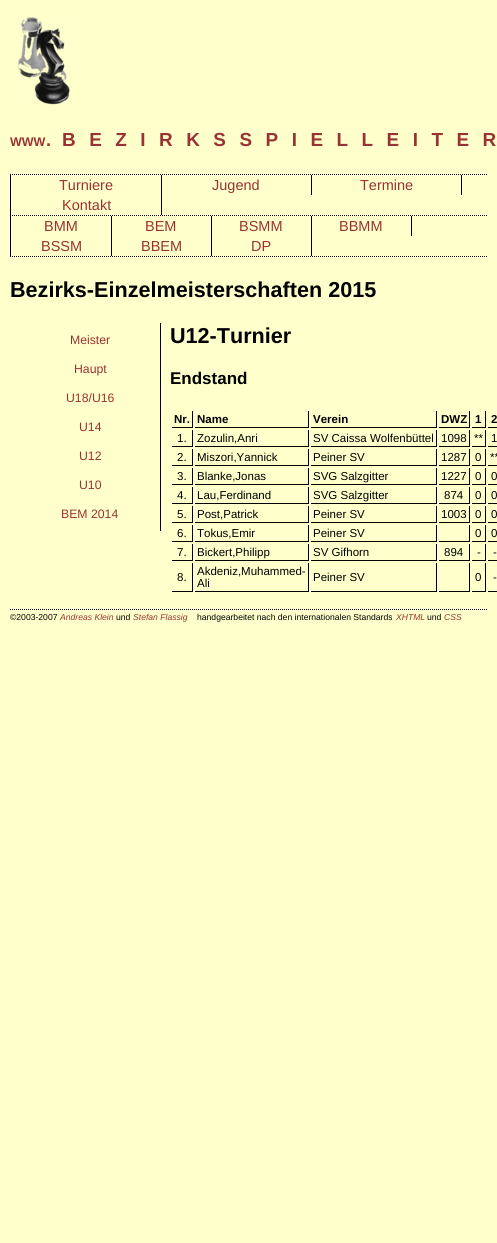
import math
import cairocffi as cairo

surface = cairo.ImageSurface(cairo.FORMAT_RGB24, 497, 1243)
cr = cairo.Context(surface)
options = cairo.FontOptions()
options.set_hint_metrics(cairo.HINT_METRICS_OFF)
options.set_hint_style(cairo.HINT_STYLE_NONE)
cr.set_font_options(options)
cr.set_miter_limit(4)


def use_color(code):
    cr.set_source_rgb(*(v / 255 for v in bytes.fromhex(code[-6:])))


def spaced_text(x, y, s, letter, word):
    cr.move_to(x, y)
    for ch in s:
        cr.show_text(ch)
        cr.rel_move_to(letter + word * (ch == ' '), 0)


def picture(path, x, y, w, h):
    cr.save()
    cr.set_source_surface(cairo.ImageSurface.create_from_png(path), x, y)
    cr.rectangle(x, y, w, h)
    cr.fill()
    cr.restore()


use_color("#ffffcc")
cr.paint()
cr.new_path()
cr.move_to(10, 174.5)
cr.line_to(487, 174.5)
use_color("#000000")
cr.set_line_width(1)
cr.set_dash([1, 1])
cr.stroke()
picture("img1.png", 18, 15, 56, 91)
cr.select_font_face("Liberation Sans", cairo.FONT_SLANT_NORMAL, cairo.FONT_WEIGHT_BOLD)
cr.set_font_size(12.5)
use_color("#993333")
cr.move_to(10, 146)
cr.show_text("WWW")
cr.set_font_size(18)
cr.move_to(46, 146)
cr.show_text(".")
cr.set_font_size(18.9)
spaced_text(62, 146, "BEZIRKSSPIELLEITER", 13.5, 0)
cr.new_path()
cr.move_to(10, 215.5)
cr.line_to(487, 215.5)
use_color("#000000")
cr.stroke()
cr.rectangle(10, 175, 1, 41)
cr.fill()
cr.rectangle(161, 175, 1, 40)
cr.fill()
cr.select_font_face("Liberation Sans")
cr.set_font_size(14.5)
use_color("#993333")
cr.move_to(59, 190)
cr.show_text("Turniere")
use_color("#000000")
cr.rectangle(311, 175, 1, 20)
cr.fill()
use_color("#993333")
cr.move_to(212, 190)
cr.show_text("Jugend")
use_color("#000000")
cr.rectangle(461, 175, 1, 20)
cr.fill()
use_color("#993333")
cr.move_to(360, 190)
cr.show_text("Termine")
cr.move_to(62, 210)
cr.show_text("Kontakt")
cr.new_path()
cr.move_to(10, 256.5)
cr.line_to(487, 256.5)
use_color("#000000")
cr.stroke()
cr.rectangle(10, 216, 1, 41)
cr.fill()
cr.rectangle(111, 216, 1, 40)
cr.fill()
use_color("#993333")
cr.move_to(44, 231)
cr.show_text("BMM")
use_color("#000000")
cr.rectangle(211, 216, 1, 40)
cr.fill()
use_color("#993333")
cr.move_to(145, 231)
cr.show_text("BEM")
use_color("#000000")
cr.rectangle(311, 216, 1, 40)
cr.fill()
use_color("#993333")
cr.move_to(239, 231)
cr.show_text("BSMM")
use_color("#000000")
cr.rectangle(411, 216, 1, 20)
cr.fill()
use_color("#993333")
cr.move_to(339, 231)
cr.show_text("BBMM")
cr.move_to(41, 251)
cr.show_text("BSSM")
cr.move_to(141, 251)
cr.show_text("BBEM")
cr.move_to(251, 251)
cr.show_text("DP")
cr.select_font_face("Liberation Sans", cairo.FONT_SLANT_NORMAL, cairo.FONT_WEIGHT_BOLD)
cr.set_font_size(21.6)
use_color("#000000")
cr.move_to(10, 297)
cr.show_text("Bezirks-Einzelmeisterschaften 2015")
cr.rectangle(160, 323, 1, 208)
cr.fill()
cr.select_font_face("Liberation Sans")
cr.set_font_size(12.25)
use_color("#993333")
cr.move_to(70, 344)
cr.show_text("Meister")
cr.move_to(74, 373)
cr.show_text("Haupt")
cr.move_to(66, 402)
cr.show_text("U18/U16")
cr.move_to(79, 431)
cr.show_text("U14")
cr.move_to(79, 460)
cr.show_text("U12")
cr.move_to(79, 489)
cr.show_text("U10")
cr.move_to(61, 518)
cr.show_text("BEM 2014")
cr.select_font_face("Liberation Sans", cairo.FONT_SLANT_NORMAL, cairo.FONT_WEIGHT_BOLD)
cr.set_font_size(21.6)
use_color("#000000")
cr.move_to(170, 343)
cr.show_text("U12-Turnier")
cr.set_font_size(17)
cr.move_to(170, 384)
cr.show_text("Endstand")
cr.rectangle(192, 411, 1, 17)
cr.fill()
cr.rectangle(172, 427, 21, 1)
cr.fill()
cr.set_font_size(11.5)
cr.move_to(174, 423)
cr.show_text("Nr.")
cr.rectangle(308, 411, 1, 17)
cr.fill()
cr.rectangle(195, 427, 114, 1)
cr.fill()
cr.move_to(197, 423)
cr.show_text("Name")
cr.rectangle(436, 411, 1, 17)
cr.fill()
cr.rectangle(311, 427, 126, 1)
cr.fill()
cr.move_to(313, 423)
cr.show_text("Verein")
cr.rectangle(469, 411, 1, 17)
cr.fill()
cr.rectangle(439, 427, 31, 1)
cr.fill()
cr.move_to(441, 423)
cr.show_text("DWZ")
cr.rectangle(485, 411, 1, 17)
cr.fill()
cr.rectangle(472, 427, 14, 1)
cr.fill()
cr.move_to(475, 423)
cr.show_text("1")
cr.rectangle(488, 427, 9, 1)
cr.fill()
cr.move_to(491, 423)
cr.show_text("2")
cr.rectangle(192, 430, 1, 17)
cr.fill()
cr.rectangle(172, 446, 21, 1)
cr.fill()
cr.select_font_face("Liberation Sans")
cr.move_to(177, 442)
cr.show_text("1.")
cr.rectangle(308, 430, 1, 17)
cr.fill()
cr.rectangle(195, 446, 114, 1)
cr.fill()
cr.move_to(197, 442)
cr.show_text("Zozulin,Anri")
cr.rectangle(436, 430, 1, 17)
cr.fill()
cr.rectangle(311, 446, 126, 1)
cr.fill()
cr.move_to(313, 442)
cr.show_text("SV Caissa Wolfenbüttel")
cr.rectangle(469, 430, 1, 17)
cr.fill()
cr.rectangle(439, 446, 31, 1)
cr.fill()
cr.move_to(441, 442)
cr.show_text("1098")
cr.rectangle(485, 430, 1, 17)
cr.fill()
cr.rectangle(472, 446, 14, 1)
cr.fill()
cr.move_to(474, 442)
cr.show_text("**")
cr.rectangle(488, 446, 9, 1)
cr.fill()
cr.move_to(491, 442)
cr.show_text("1")
cr.rectangle(192, 449, 1, 17)
cr.fill()
cr.rectangle(172, 465, 21, 1)
cr.fill()
cr.move_to(177, 461)
cr.show_text("2.")
cr.rectangle(308, 449, 1, 17)
cr.fill()
cr.rectangle(195, 465, 114, 1)
cr.fill()
cr.move_to(197, 461)
cr.show_text("Miszori,Yannick")
cr.rectangle(436, 449, 1, 17)
cr.fill()
cr.rectangle(311, 465, 126, 1)
cr.fill()
cr.move_to(313, 461)
cr.show_text("Peiner SV")
cr.rectangle(469, 449, 1, 17)
cr.fill()
cr.rectangle(439, 465, 31, 1)
cr.fill()
cr.move_to(441, 461)
cr.show_text("1287")
cr.rectangle(485, 449, 1, 17)
cr.fill()
cr.rectangle(472, 465, 14, 1)
cr.fill()
cr.move_to(475, 461)
cr.show_text("0")
cr.rectangle(488, 465, 9, 1)
cr.fill()
cr.move_to(490, 461)
cr.show_text("**")
cr.rectangle(192, 468, 1, 17)
cr.fill()
cr.rectangle(172, 484, 21, 1)
cr.fill()
cr.move_to(177, 480)
cr.show_text("3.")
cr.rectangle(308, 468, 1, 17)
cr.fill()
cr.rectangle(195, 484, 114, 1)
cr.fill()
cr.move_to(197, 480)
cr.show_text("Blanke,Jonas")
cr.rectangle(436, 468, 1, 17)
cr.fill()
cr.rectangle(311, 484, 126, 1)
cr.fill()
cr.move_to(313, 480)
cr.show_text("SVG Salzgitter")
cr.rectangle(469, 468, 1, 17)
cr.fill()
cr.rectangle(439, 484, 31, 1)
cr.fill()
cr.move_to(441, 480)
cr.show_text("1227")
cr.rectangle(485, 468, 1, 17)
cr.fill()
cr.rectangle(472, 484, 14, 1)
cr.fill()
cr.move_to(475, 480)
cr.show_text("0")
cr.rectangle(488, 484, 9, 1)
cr.fill()
cr.move_to(491, 480)
cr.show_text("0")
cr.rectangle(192, 487, 1, 17)
cr.fill()
cr.rectangle(172, 503, 21, 1)
cr.fill()
cr.move_to(177, 499)
cr.show_text("4.")
cr.rectangle(308, 487, 1, 17)
cr.fill()
cr.rectangle(195, 503, 114, 1)
cr.fill()
cr.move_to(197, 499)
cr.show_text("Lau,Ferdinand")
cr.rectangle(436, 487, 1, 17)
cr.fill()
cr.rectangle(311, 503, 126, 1)
cr.fill()
cr.move_to(313, 499)
cr.show_text("SVG Salzgitter")
cr.rectangle(469, 487, 1, 17)
cr.fill()
cr.rectangle(439, 503, 31, 1)
cr.fill()
cr.move_to(444, 499)
cr.show_text("874")
cr.rectangle(485, 487, 1, 17)
cr.fill()
cr.rectangle(472, 503, 14, 1)
cr.fill()
cr.move_to(475, 499)
cr.show_text("0")
cr.rectangle(488, 503, 9, 1)
cr.fill()
cr.move_to(491, 499)
cr.show_text("0")
cr.rectangle(192, 506, 1, 17)
cr.fill()
cr.rectangle(172, 522, 21, 1)
cr.fill()
cr.move_to(177, 518)
cr.show_text("5.")
cr.rectangle(308, 506, 1, 17)
cr.fill()
cr.rectangle(195, 522, 114, 1)
cr.fill()
cr.move_to(197, 518)
cr.show_text("Post,Patrick")
cr.rectangle(436, 506, 1, 17)
cr.fill()
cr.rectangle(311, 522, 126, 1)
cr.fill()
cr.move_to(313, 518)
cr.show_text("Peiner SV")
cr.rectangle(469, 506, 1, 17)
cr.fill()
cr.rectangle(439, 522, 31, 1)
cr.fill()
cr.move_to(441, 518)
cr.show_text("1003")
cr.rectangle(485, 506, 1, 17)
cr.fill()
cr.rectangle(472, 522, 14, 1)
cr.fill()
cr.move_to(475, 518)
cr.show_text("0")
cr.rectangle(488, 522, 9, 1)
cr.fill()
cr.move_to(491, 518)
cr.show_text("0")
cr.rectangle(192, 525, 1, 17)
cr.fill()
cr.rectangle(172, 541, 21, 1)
cr.fill()
cr.move_to(177, 537)
cr.show_text("6.")
cr.rectangle(308, 525, 1, 17)
cr.fill()
cr.rectangle(195, 541, 114, 1)
cr.fill()
cr.move_to(197, 537)
cr.show_text("Tokus,Emir")
cr.rectangle(436, 525, 1, 17)
cr.fill()
cr.rectangle(311, 541, 126, 1)
cr.fill()
cr.move_to(313, 537)
cr.show_text("Peiner SV")
cr.rectangle(469, 525, 1, 17)
cr.fill()
cr.rectangle(439, 541, 31, 1)
cr.fill()
cr.rectangle(485, 525, 1, 17)
cr.fill()
cr.rectangle(472, 541, 14, 1)
cr.fill()
cr.move_to(475, 537)
cr.show_text("0")
cr.rectangle(488, 541, 9, 1)
cr.fill()
cr.move_to(491, 537)
cr.show_text("0")
cr.rectangle(192, 544, 1, 17)
cr.fill()
cr.rectangle(172, 560, 21, 1)
cr.fill()
cr.move_to(177, 556)
cr.show_text("7.")
cr.rectangle(308, 544, 1, 17)
cr.fill()
cr.rectangle(195, 560, 114, 1)
cr.fill()
cr.move_to(197, 556)
cr.show_text("Bickert,Philipp")
cr.rectangle(436, 544, 1, 17)
cr.fill()
cr.rectangle(311, 560, 126, 1)
cr.fill()
cr.move_to(313, 556)
cr.show_text("SV Gifhorn")
cr.rectangle(469, 544, 1, 17)
cr.fill()
cr.rectangle(439, 560, 31, 1)
cr.fill()
cr.move_to(444, 556)
cr.show_text("894")
cr.rectangle(485, 544, 1, 17)
cr.fill()
cr.rectangle(472, 560, 14, 1)
cr.fill()
cr.move_to(477, 556)
cr.show_text("-")
cr.rectangle(488, 560, 9, 1)
cr.fill()
cr.move_to(493, 556)
cr.show_text("-")
cr.rectangle(192, 563, 1, 29)
cr.fill()
cr.rectangle(172, 591, 21, 1)
cr.fill()
cr.move_to(177, 581)
cr.show_text("8.")
cr.rectangle(308, 563, 1, 29)
cr.fill()
cr.rectangle(195, 591, 114, 1)
cr.fill()
cr.move_to(197, 575)
cr.show_text("Akdeniz,Muhammed-")
cr.move_to(197, 587)
cr.show_text("Ali")
cr.rectangle(436, 563, 1, 29)
cr.fill()
cr.rectangle(311, 591, 126, 1)
cr.fill()
cr.move_to(313, 581)
cr.show_text("Peiner SV")
cr.rectangle(469, 563, 1, 29)
cr.fill()
cr.rectangle(439, 591, 31, 1)
cr.fill()
cr.rectangle(485, 563, 1, 29)
cr.fill()
cr.rectangle(472, 591, 14, 1)
cr.fill()
cr.move_to(475, 581)
cr.show_text("0")
cr.rectangle(488, 591, 9, 1)
cr.fill()
cr.move_to(493, 581)
cr.show_text("-")
cr.new_path()
cr.move_to(10, 609.5)
cr.line_to(487, 609.5)
cr.stroke()
cr.set_font_size(8.6)
cr.move_to(10, 620)
cr.show_text("©2003-2007")
cr.select_font_face("Liberation Sans", cairo.FONT_SLANT_ITALIC)
use_color("#993333")
cr.move_to(60, 620)
cr.show_text("Andreas Klein")
cr.select_font_face("Liberation Sans")
use_color("#000000")
cr.move_to(116, 620)
cr.show_text("und")
cr.select_font_face("Liberation Sans", cairo.FONT_SLANT_ITALIC)
use_color("#993333")
cr.move_to(133, 620)
cr.show_text("Stefan Flassig")
cr.select_font_face("Liberation Sans")
use_color("#000000")
cr.move_to(197, 620)
cr.show_text("handgearbeitet nach den internationalen Standards")
cr.select_font_face("Liberation Sans", cairo.FONT_SLANT_ITALIC)
use_color("#993333")
cr.move_to(396, 620)
cr.show_text("XHTML")
cr.select_font_face("Liberation Sans")
use_color("#000000")
cr.move_to(427, 620)
cr.show_text("und")
cr.select_font_face("Liberation Sans", cairo.FONT_SLANT_ITALIC)
use_color("#993333")
cr.move_to(444, 620)
cr.show_text("CSS")
surface.write_to_png("result.png")
